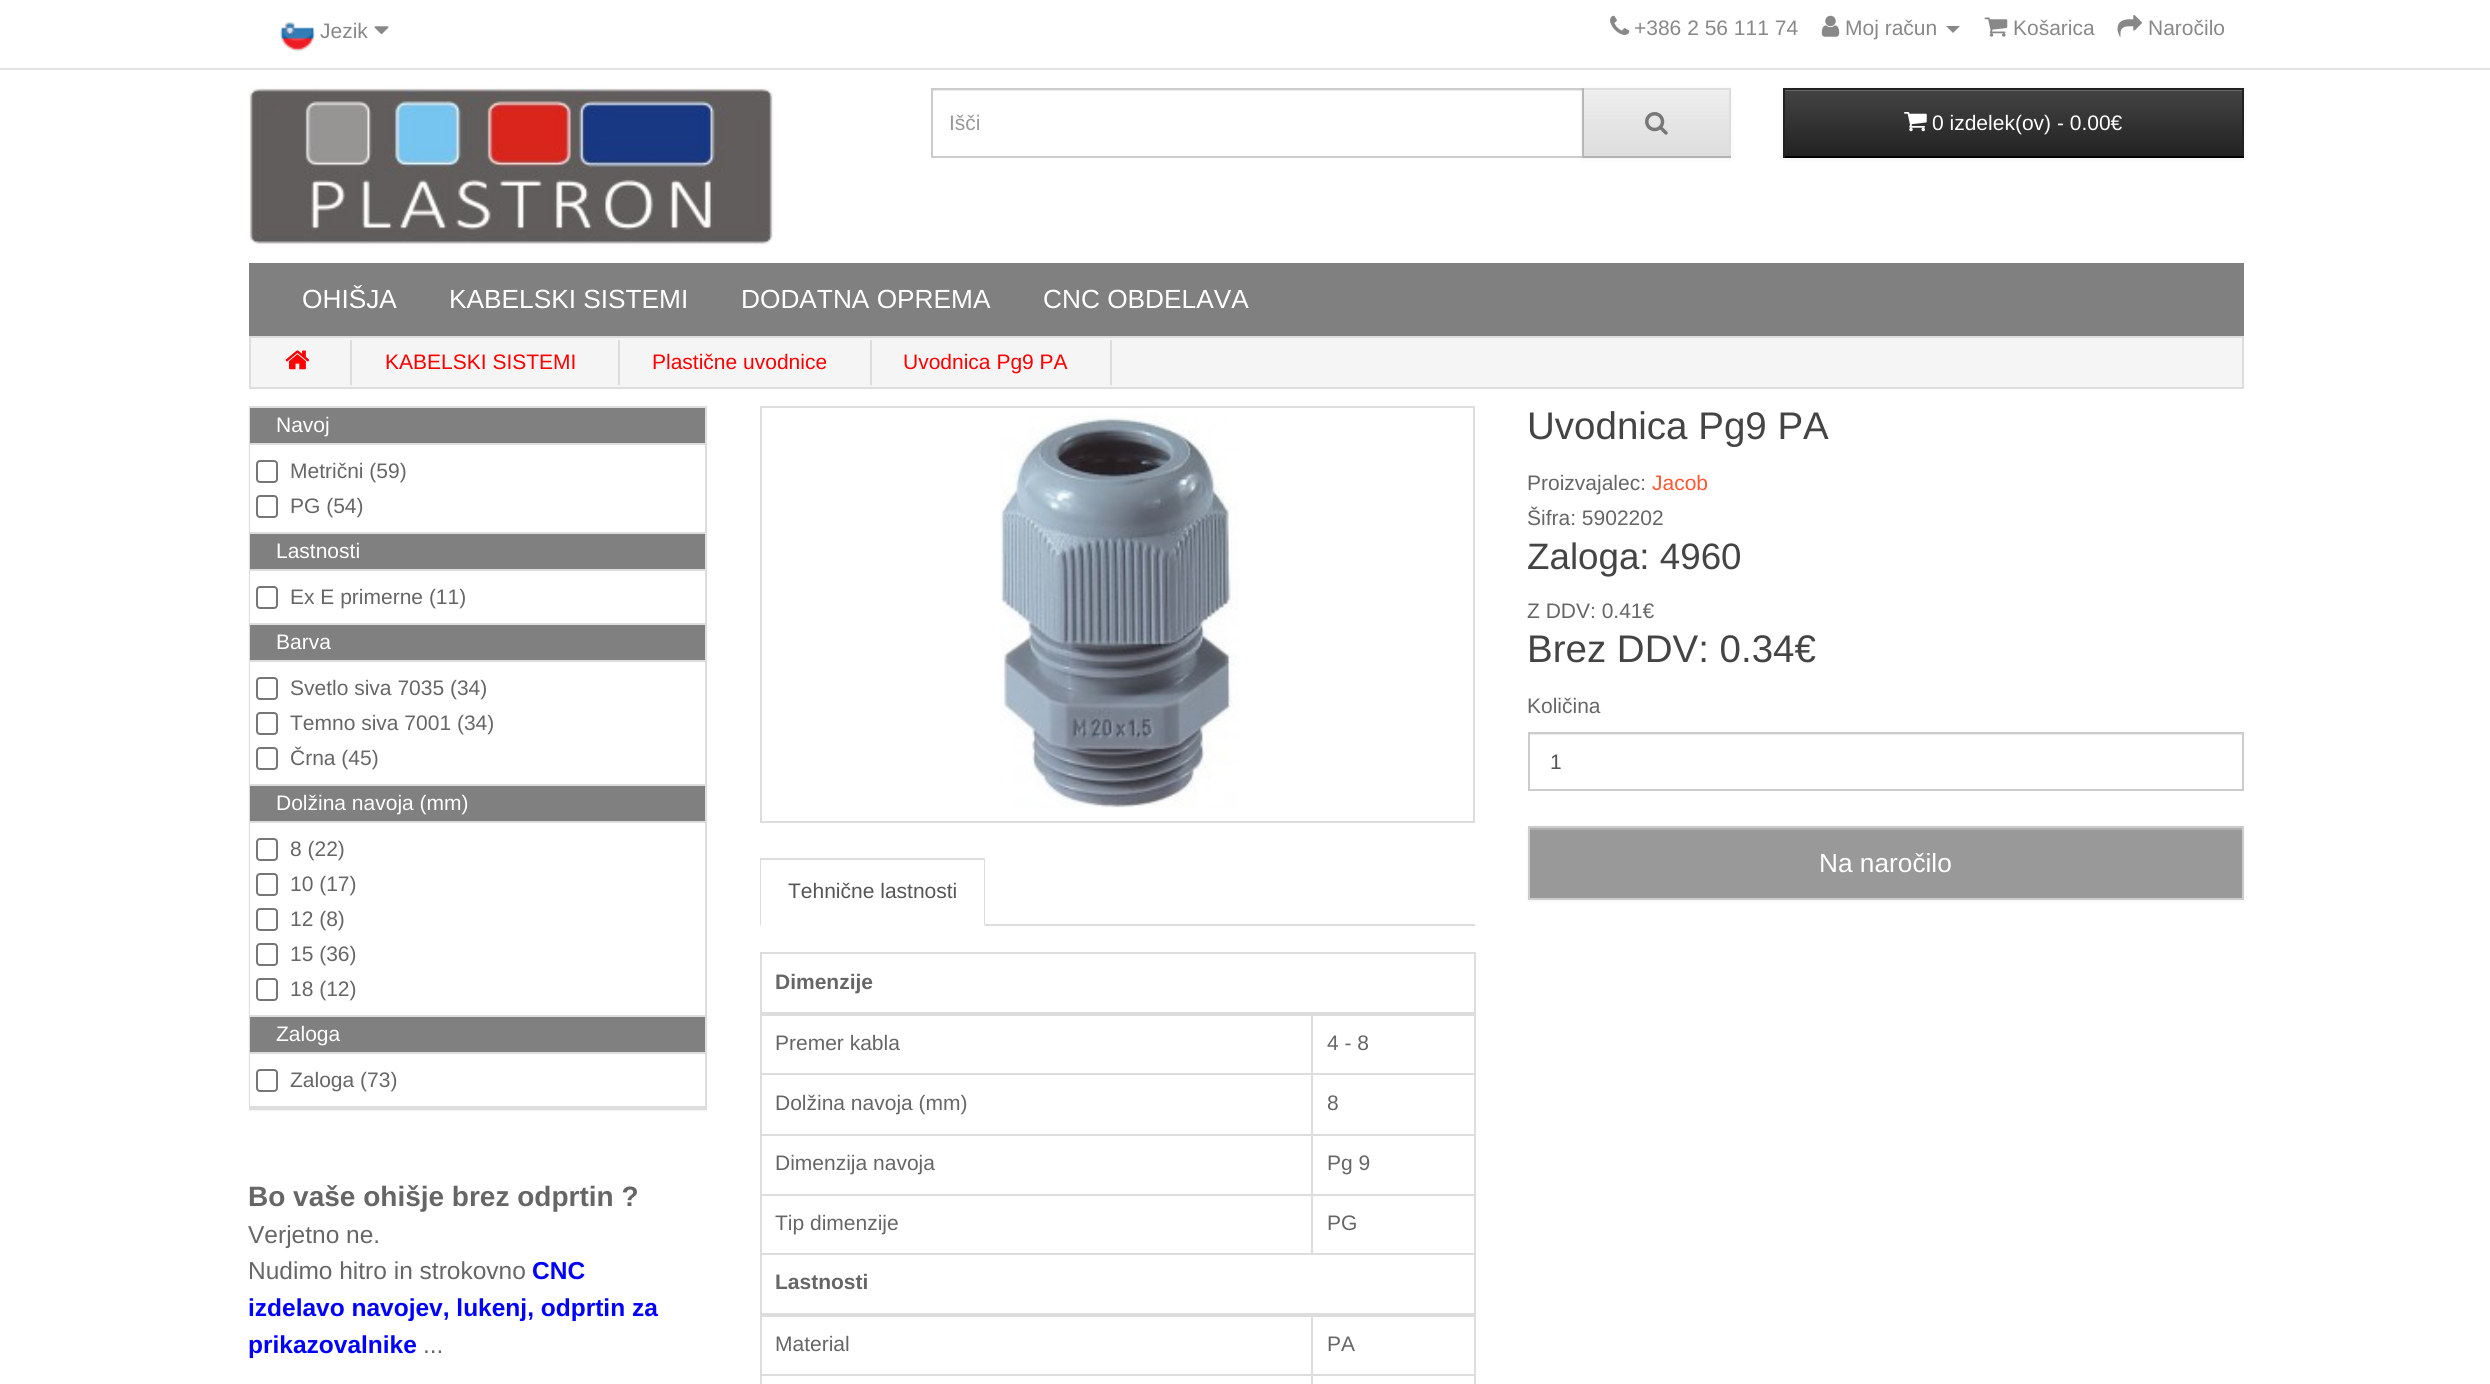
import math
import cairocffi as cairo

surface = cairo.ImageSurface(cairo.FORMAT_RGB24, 2490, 1384)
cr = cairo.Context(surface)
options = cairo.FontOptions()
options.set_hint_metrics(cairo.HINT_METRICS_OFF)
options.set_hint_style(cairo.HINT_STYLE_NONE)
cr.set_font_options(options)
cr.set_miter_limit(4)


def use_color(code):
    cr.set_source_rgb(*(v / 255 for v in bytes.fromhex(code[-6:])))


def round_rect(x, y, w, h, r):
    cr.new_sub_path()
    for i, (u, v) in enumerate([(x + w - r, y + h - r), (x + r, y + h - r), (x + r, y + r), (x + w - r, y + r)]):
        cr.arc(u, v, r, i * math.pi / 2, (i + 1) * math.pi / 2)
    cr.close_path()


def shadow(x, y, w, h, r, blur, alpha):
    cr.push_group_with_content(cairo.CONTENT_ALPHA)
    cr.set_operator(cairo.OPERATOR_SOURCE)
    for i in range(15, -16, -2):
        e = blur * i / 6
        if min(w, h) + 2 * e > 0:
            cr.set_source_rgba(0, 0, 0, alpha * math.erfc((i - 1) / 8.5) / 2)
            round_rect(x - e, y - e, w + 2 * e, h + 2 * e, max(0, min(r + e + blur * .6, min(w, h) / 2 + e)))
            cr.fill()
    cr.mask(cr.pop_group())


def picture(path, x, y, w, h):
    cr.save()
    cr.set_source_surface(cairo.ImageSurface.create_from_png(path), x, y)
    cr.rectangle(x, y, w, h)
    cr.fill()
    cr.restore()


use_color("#ffffff")
cr.paint()
use_color("#e2e2e2")
cr.rectangle(0, 68, 2490, 2)
cr.fill()
picture("img1.png", 280, 22, 35, 29)
cr.select_font_face("Liberation Sans")
cr.set_font_size(21)
use_color("#888888")
cr.move_to(320, 38)
cr.show_text("Jezik")
picture("img2.png", 374, 26, 15, 9)
picture("img3.png", 1610, 15, 20, 20)
cr.move_to(1634, 35)
cr.show_text("+386 2 56 111 74")
picture("img4.png", 1821, 15, 19, 22)
cr.move_to(1845, 35)
cr.show_text("Moj račun")
cr.new_path()
cr.move_to(1946, 26)
cr.line_to(1960, 26)
cr.line_to(1953, 33)
cr.close_path()
cr.fill()
picture("img5.png", 1984, 17, 24, 20)
cr.move_to(2013, 35)
cr.show_text("Košarica")
picture("img6.png", 2117, 15, 25, 22)
cr.move_to(2148, 35)
cr.show_text("Naročilo")
picture("img7.png", 248, 87, 526, 158)
use_color("#ececec")
cr.rectangle(933, 90, 649, 1)
cr.fill()
cr.rectangle(932, 89, 651, 68)
use_color("#cccccc")
cr.stroke()
use_color("#999999")
cr.move_to(949, 130)
cr.show_text("Išči")
use_color("#000000")
shadow(1582, 89, 149, 70, 0, 2, 0.05)
gradient = cairo.LinearGradient(1656, 89, 1656, 156)
gradient.add_color_stop_rgba(0, 0.933, 0.933, 0.933, 1)
gradient.add_color_stop_rgba(1, 0.867, 0.867, 0.867, 1)
cr.set_source(gradient)
cr.rectangle(1584, 91, 145, 65)
cr.fill()
use_color("#f1f1f1")
cr.rectangle(1584, 90, 145, 1)
cr.fill()
use_color("#dddddd")
cr.rectangle(1582, 88, 149, 2)
cr.fill()
cr.rectangle(1729, 88, 2, 70)
cr.fill()
use_color("#b3b3b3")
cr.rectangle(1582, 156, 149, 2)
cr.fill()
use_color("#b7b7b7")
cr.rectangle(1582, 88, 2, 70)
cr.fill()
picture("img8.png", 1645, 112, 23, 23)
use_color("#000000")
shadow(1783, 89, 461, 70, 0, 2, 0.05)
gradient = cairo.LinearGradient(2013, 89, 2013, 156)
gradient.add_color_stop_rgba(0, 0.267, 0.267, 0.267, 1)
gradient.add_color_stop_rgba(1, 0.133, 0.133, 0.133, 1)
cr.set_source(gradient)
cr.rectangle(1785, 91, 457, 65)
cr.fill()
use_color("#696969")
cr.rectangle(1785, 90, 457, 1)
cr.fill()
use_color("#222222")
cr.rectangle(1783, 88, 461, 2)
cr.fill()
cr.rectangle(2242, 88, 2, 70)
cr.fill()
use_color("#000000")
cr.rectangle(1783, 156, 461, 2)
cr.fill()
use_color("#222222")
cr.rectangle(1783, 88, 2, 70)
cr.fill()
picture("img9.png", 1904, 112, 23, 20)
use_color("#ffffff")
cr.move_to(1932, 130)
cr.show_text("0 izdelek(ov) - 0.00€")
use_color("#808080")
cr.rectangle(249, 263, 1995, 73)
cr.fill()
cr.set_font_size(26.25)
use_color("#ffffff")
cr.move_to(302, 308)
cr.show_text("OHIŠJA")
cr.move_to(449, 308)
cr.show_text("KABELSKI SISTEMI")
cr.move_to(741, 308)
cr.show_text("DODATNA OPREMA")
cr.move_to(1043, 308)
cr.show_text("CNC OBDELAVA")
use_color("#f5f5f5")
cr.rectangle(250, 337, 1993, 51)
cr.fill_preserve()
use_color("#dddddd")
cr.stroke()
picture("img10.png", 285, 350, 25, 20)
cr.rectangle(350, 340, 2, 45)
cr.fill()
cr.set_font_size(21)
use_color("#ff0000")
cr.move_to(385, 369)
cr.show_text("KABELSKI SISTEMI")
use_color("#dddddd")
cr.rectangle(618, 340, 2, 45)
cr.fill()
use_color("#ff0000")
cr.move_to(652, 369)
cr.show_text("Plastične uvodnice")
use_color("#dddddd")
cr.rectangle(870, 340, 2, 45)
cr.fill()
use_color("#ff0000")
cr.move_to(903, 369)
cr.show_text("Uvodnica Pg9 PA")
use_color("#dddddd")
cr.rectangle(1110, 340, 2, 45)
cr.fill()
use_color("#000000")
shadow(249, 408, 458, 703, 0, 1, 0.05)
cr.rectangle(250, 407, 456, 702)
use_color("#dddddd")
cr.stroke()
use_color("#808080")
cr.rectangle(250, 408, 455, 35)
cr.fill()
use_color("#dddddd")
cr.rectangle(250, 443, 455, 2)
cr.fill()
use_color("#ffffff")
cr.move_to(276, 432)
cr.show_text("Navoj")
cr.rectangle(250, 445, 455, 87)
cr.fill()
use_color("#dddddd")
cr.rectangle(250, 532, 455, 2)
cr.fill()
round_rect(257, 461, 20, 21, 3)
use_color("#767676")
cr.stroke()
use_color("#666666")
cr.move_to(290, 478)
cr.show_text("Metrični (59)")
round_rect(257, 496, 20, 21, 3)
use_color("#767676")
cr.stroke()
use_color("#666666")
cr.move_to(290, 513)
cr.show_text("PG (54)")
use_color("#808080")
cr.rectangle(250, 534, 455, 35)
cr.fill()
use_color("#dddddd")
cr.rectangle(250, 569, 455, 2)
cr.fill()
use_color("#ffffff")
cr.move_to(276, 558)
cr.show_text("Lastnosti")
cr.rectangle(250, 571, 455, 52)
cr.fill()
use_color("#dddddd")
cr.rectangle(250, 623, 455, 2)
cr.fill()
round_rect(257, 587, 20, 21, 3)
use_color("#767676")
cr.stroke()
use_color("#666666")
cr.move_to(290, 604)
cr.show_text("Ex E primerne (11)")
use_color("#808080")
cr.rectangle(250, 625, 455, 35)
cr.fill()
use_color("#dddddd")
cr.rectangle(250, 660, 455, 2)
cr.fill()
use_color("#ffffff")
cr.move_to(276, 649)
cr.show_text("Barva")
cr.rectangle(250, 662, 455, 122)
cr.fill()
use_color("#dddddd")
cr.rectangle(250, 784, 455, 2)
cr.fill()
round_rect(257, 678, 20, 21, 3)
use_color("#767676")
cr.stroke()
use_color("#666666")
cr.move_to(290, 695)
cr.show_text("Svetlo siva 7035 (34)")
round_rect(257, 713, 20, 21, 3)
use_color("#767676")
cr.stroke()
use_color("#666666")
cr.move_to(290, 730)
cr.show_text("Temno siva 7001 (34)")
round_rect(257, 748, 20, 21, 3)
use_color("#767676")
cr.stroke()
use_color("#666666")
cr.move_to(290, 765)
cr.show_text("Črna (45)")
use_color("#808080")
cr.rectangle(250, 786, 455, 35)
cr.fill()
use_color("#dddddd")
cr.rectangle(250, 821, 455, 2)
cr.fill()
use_color("#ffffff")
cr.move_to(276, 810)
cr.show_text("Dolžina navoja (mm)")
cr.rectangle(250, 823, 455, 192)
cr.fill()
use_color("#dddddd")
cr.rectangle(250, 1015, 455, 2)
cr.fill()
round_rect(257, 839, 20, 21, 3)
use_color("#767676")
cr.stroke()
use_color("#666666")
cr.move_to(290, 856)
cr.show_text("8 (22)")
round_rect(257, 874, 20, 21, 3)
use_color("#767676")
cr.stroke()
use_color("#666666")
cr.move_to(290, 891)
cr.show_text("10 (17)")
round_rect(257, 909, 20, 21, 3)
use_color("#767676")
cr.stroke()
use_color("#666666")
cr.move_to(290, 926)
cr.show_text("12 (8)")
round_rect(257, 944, 20, 21, 3)
use_color("#767676")
cr.stroke()
use_color("#666666")
cr.move_to(290, 961)
cr.show_text("15 (36)")
round_rect(257, 979, 20, 21, 3)
use_color("#767676")
cr.stroke()
use_color("#666666")
cr.move_to(290, 996)
cr.show_text("18 (12)")
use_color("#808080")
cr.rectangle(250, 1017, 455, 35)
cr.fill()
use_color("#dddddd")
cr.rectangle(250, 1052, 455, 2)
cr.fill()
use_color("#ffffff")
cr.move_to(276, 1041)
cr.show_text("Zaloga")
cr.rectangle(250, 1054, 455, 52)
cr.fill()
use_color("#dddddd")
cr.rectangle(250, 1106, 455, 2)
cr.fill()
round_rect(257, 1070, 20, 21, 3)
use_color("#767676")
cr.stroke()
use_color("#666666")
cr.move_to(290, 1087)
cr.show_text("Zaloga (73)")
cr.select_font_face("Liberation Sans", cairo.FONT_SLANT_NORMAL, cairo.FONT_WEIGHT_BOLD)
cr.set_font_size(28)
cr.move_to(248, 1206)
cr.show_text("Bo vaše ohišje brez odprtin ?")
cr.select_font_face("Liberation Sans")
cr.set_font_size(24.5)
cr.move_to(248, 1243)
cr.show_text("Verjetno ne.")
cr.move_to(248, 1279)
cr.show_text("Nudimo hitro in strokovno")
cr.select_font_face("Liberation Sans", cairo.FONT_SLANT_NORMAL, cairo.FONT_WEIGHT_BOLD)
use_color("#0000ff")
cr.move_to(532, 1279)
cr.show_text("CNC")
cr.move_to(248, 1316)
cr.show_text("izdelavo navojev, lukenj, odprtin za")
cr.move_to(248, 1353)
cr.show_text("prikazovalnike")
cr.select_font_face("Liberation Sans")
use_color("#666666")
cr.move_to(423, 1353)
cr.show_text("...")
cr.set_font_size(38.5)
use_color("#444444")
cr.move_to(1527, 439)
cr.show_text("Uvodnica Pg9 PA")
cr.set_font_size(21)
use_color("#666666")
cr.move_to(1527, 490)
cr.show_text("Proizvajalec:")
use_color("#ff5733")
cr.move_to(1652, 490)
cr.show_text("Jacob")
use_color("#666666")
cr.move_to(1527, 525)
cr.show_text("Šifra: 5902202")
cr.set_font_size(36.75)
use_color("#444444")
cr.move_to(1527, 569)
cr.show_text("Zaloga: 4960")
cr.set_font_size(21)
use_color("#666666")
cr.move_to(1527, 618)
cr.show_text("Z DDV: 0.41€")
cr.set_font_size(38.5)
use_color("#444444")
cr.move_to(1527, 662)
cr.show_text("Brez DDV: 0.34€")
cr.set_font_size(21)
use_color("#666666")
cr.move_to(1527, 713)
cr.show_text("Količina")
use_color("#ececec")
cr.rectangle(1530, 734, 712, 1)
cr.fill()
cr.rectangle(1529, 733, 714, 57)
use_color("#cccccc")
cr.stroke()
use_color("#555555")
cr.move_to(1550, 769)
cr.show_text("1")
use_color("#000000")
shadow(1528, 828, 716, 73, 0, 2, 0.05)
use_color("#999999")
cr.rectangle(1530, 830, 712, 68)
cr.fill()
use_color("#adadad")
cr.rectangle(1530, 828, 712, 2)
cr.fill()
cr.rectangle(1529, 827, 714, 72)
use_color("#cccccc")
cr.stroke()
cr.set_font_size(26.25)
use_color("#ffffff")
cr.move_to(1819, 872)
cr.show_text("Na naročilo")
cr.rectangle(761, 407, 713, 415)
use_color("#dddddd")
cr.stroke()
picture("img11.png", 1000, 415, 239, 393)
cr.rectangle(985, 924, 490, 2)
cr.fill()
cr.rectangle(760, 858, 225, 2)
cr.fill()
cr.new_path()
cr.move_to(985, 858)
cr.line_to(985, 926)
cr.line_to(984, 924)
cr.line_to(984, 859)
cr.close_path()
cr.fill()
cr.new_path()
cr.move_to(760, 926)
cr.line_to(760, 858)
cr.line_to(761, 859)
cr.line_to(761, 924)
cr.close_path()
cr.fill()
cr.set_font_size(21)
use_color("#555555")
cr.move_to(788, 898)
cr.show_text("Tehnične lastnosti")
use_color("#dddddd")
cr.rectangle(760, 952, 715, 2)
cr.fill()
cr.rectangle(1474, 952, 2, 432)
cr.fill()
cr.rectangle(760, 952, 2, 432)
cr.fill()
cr.rectangle(1311, 1073, 164, 2)
cr.fill()
cr.rectangle(1311, 1134, 164, 2)
cr.fill()
cr.rectangle(1311, 1194, 164, 2)
cr.fill()
cr.rectangle(760, 1253, 715, 2)
cr.fill()
cr.rectangle(1311, 1194, 2, 61)
cr.fill()
cr.rectangle(760, 1194, 553, 2)
cr.fill()
cr.rectangle(1311, 1134, 2, 61)
cr.fill()
cr.rectangle(760, 1134, 553, 2)
cr.fill()
cr.rectangle(1311, 1073, 2, 63)
cr.fill()
cr.rectangle(760, 1073, 553, 2)
cr.fill()
cr.rectangle(1311, 1013, 2, 62)
cr.fill()
cr.rectangle(760, 1012, 715, 4)
cr.fill()
cr.select_font_face("Liberation Sans", cairo.FONT_SLANT_NORMAL, cairo.FONT_WEIGHT_BOLD)
use_color("#666666")
cr.move_to(775, 989)
cr.show_text("Dimenzije")
cr.select_font_face("Liberation Sans")
cr.move_to(775, 1050)
cr.show_text("Premer kabla")
cr.move_to(1327, 1050)
cr.show_text("4 - 8")
cr.move_to(775, 1110)
cr.show_text("Dolžina navoja (mm)")
cr.move_to(1327, 1110)
cr.show_text("8")
cr.move_to(775, 1170)
cr.show_text("Dimenzija navoja")
cr.move_to(1327, 1170)
cr.show_text("Pg 9")
cr.move_to(775, 1230)
cr.show_text("Tip dimenzije")
cr.move_to(1327, 1230)
cr.show_text("PG")
use_color("#dddddd")
cr.rectangle(1311, 1374, 164, 2)
cr.fill()
cr.rectangle(1311, 1374, 2, 10)
cr.fill()
cr.rectangle(760, 1374, 553, 2)
cr.fill()
cr.rectangle(1311, 1313, 2, 63)
cr.fill()
cr.rectangle(760, 1313, 715, 4)
cr.fill()
cr.select_font_face("Liberation Sans", cairo.FONT_SLANT_NORMAL, cairo.FONT_WEIGHT_BOLD)
use_color("#666666")
cr.move_to(775, 1289)
cr.show_text("Lastnosti")
cr.select_font_face("Liberation Sans")
cr.move_to(775, 1351)
cr.show_text("Material")
cr.move_to(1327, 1351)
cr.show_text("PA")
surface.write_to_png("result.png")
